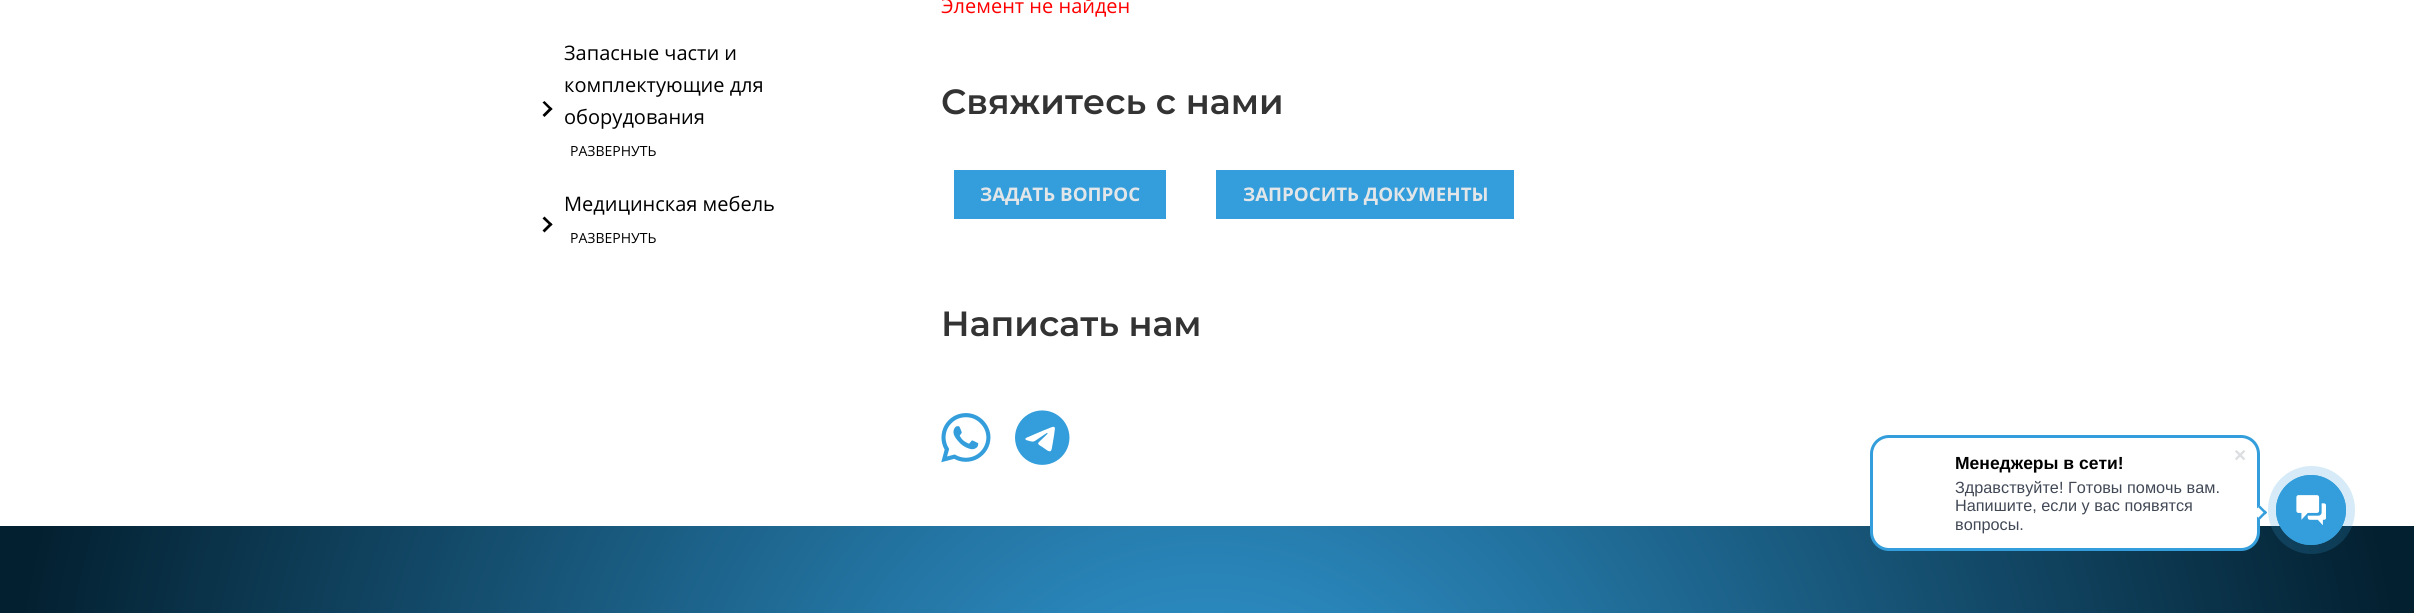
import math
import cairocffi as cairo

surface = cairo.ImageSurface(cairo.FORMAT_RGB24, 2414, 613)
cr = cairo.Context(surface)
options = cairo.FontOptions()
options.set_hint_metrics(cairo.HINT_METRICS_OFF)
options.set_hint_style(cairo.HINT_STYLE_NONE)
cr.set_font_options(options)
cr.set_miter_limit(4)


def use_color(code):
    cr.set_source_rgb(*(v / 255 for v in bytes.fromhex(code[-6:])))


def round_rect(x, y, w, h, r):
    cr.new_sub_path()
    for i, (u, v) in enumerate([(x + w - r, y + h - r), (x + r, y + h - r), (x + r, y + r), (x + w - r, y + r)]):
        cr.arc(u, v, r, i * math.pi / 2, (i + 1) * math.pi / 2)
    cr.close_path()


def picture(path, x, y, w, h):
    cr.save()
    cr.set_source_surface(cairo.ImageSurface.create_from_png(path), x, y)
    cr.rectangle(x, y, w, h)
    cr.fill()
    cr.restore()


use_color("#ffffff")
cr.paint()
use_color("#000000")
cr.new_path()
cr.move_to(550.5, 110.5)
cr.line_to(542.5, 102.5)
cr.line_to(544.5, 101)
cr.line_to(552.5, 109)
cr.close_path()
cr.fill()
cr.new_path()
cr.move_to(544.5, 117)
cr.line_to(542.5, 115)
cr.line_to(550.5, 107)
cr.line_to(552.5, 109)
cr.close_path()
cr.fill()
cr.select_font_face("Open Sans")
cr.set_font_size(20)
cr.move_to(564, 60)
cr.show_text("Запасные части и")
cr.move_to(564, 92)
cr.show_text("комплектующие для")
cr.move_to(564, 124)
cr.show_text("оборудования")
cr.set_font_size(14)
cr.move_to(570, 156)
cr.show_text("РАЗВЕРНУТЬ")
cr.set_font_size(20)
cr.move_to(564, 211)
cr.show_text("Медицинская мебель")
cr.new_path()
cr.move_to(550.5, 226)
cr.line_to(542.5, 218.5)
cr.line_to(544.5, 216.5)
cr.line_to(552.5, 224.5)
cr.close_path()
cr.fill()
cr.new_path()
cr.move_to(544.5, 232.5)
cr.line_to(542.5, 230.5)
cr.line_to(550.5, 222.5)
cr.line_to(552.5, 224.5)
cr.close_path()
cr.fill()
cr.set_font_size(14)
cr.move_to(570, 243)
cr.show_text("РАЗВЕРНУТЬ")
cr.set_font_size(20)
use_color("#ff0000")
cr.move_to(941, 13)
cr.show_text("Элемент не найден")
cr.select_font_face("Montserrat SemiBold")
cr.set_font_size(35)
use_color("#333333")
cr.move_to(941, 114)
cr.show_text("Свяжитесь с нами")
use_color("#339edb")
cr.rectangle(954, 170, 212, 49)
cr.fill()
cr.select_font_face("Open Sans", cairo.FONT_SLANT_NORMAL, cairo.FONT_WEIGHT_BOLD)
cr.set_font_size(18.75)
use_color("#e3e6e8")
cr.move_to(980, 201)
cr.show_text("ЗАДАТЬ ВОПРОС")
use_color("#339edb")
cr.rectangle(1216, 170, 298, 49)
cr.fill()
use_color("#e3e6e8")
cr.move_to(1243, 201)
cr.show_text("ЗАПРОСИТЬ ДОКУМЕНТЫ")
cr.select_font_face("Montserrat SemiBold")
cr.set_font_size(35)
use_color("#333333")
cr.move_to(941, 336)
cr.show_text("Написать нам")
picture("img1.png", 941, 413, 50, 50)
picture("img2.png", 1015, 410, 55, 55)
gradient = cairo.RadialGradient(1208, 828, 0, 1208, 828, 1208)
gradient.add_color_stop_rgba(0, 0.2, 0.62, 0.859, 1)
gradient.add_color_stop_rgba(1, 0.012, 0.125, 0.188, 1)
cr.set_source(gradient)
cr.rectangle(0, 526, 2414, 87)
cr.fill()
use_color("#ffffff")
round_rect(1871.5, 436.5, 387, 113, 17.5)
cr.fill_preserve()
use_color("#339edb")
cr.set_line_width(3)
cr.stroke()
cr.select_font_face("Liberation Sans", cairo.FONT_SLANT_NORMAL, cairo.FONT_WEIGHT_BOLD)
cr.set_font_size(17.5)
use_color("#000000")
cr.move_to(1955, 469)
cr.show_text("Менеджеры в сети!")
cr.select_font_face("Liberation Sans")
cr.set_font_size(16.25)
use_color("#424956")
cr.move_to(1955, 493)
cr.show_text("Здравствуйте! Готовы помочь вам.")
cr.move_to(1955, 511)
cr.show_text("Напишите, если у вас появятся")
cr.move_to(1955, 530)
cr.show_text("вопросы.")
picture("img3.png", 2235, 450, 11, 11)
use_color("#ffffff")
cr.new_path()
cr.move_to(2253, 512.5)
cr.line_to(2260, 505.5)
cr.line_to(2267, 512.5)
cr.line_to(2260, 519.5)
cr.close_path()
cr.fill()
use_color("#339edb")
cr.new_path()
cr.move_to(2258, 507)
cr.line_to(2260, 505.5)
cr.line_to(2267, 512.5)
cr.line_to(2265.5, 514.5)
cr.close_path()
cr.fill()
cr.new_path()
cr.move_to(2258, 518)
cr.line_to(2265.5, 510.5)
cr.line_to(2267, 512.5)
cr.line_to(2260, 519.5)
cr.close_path()
cr.fill()
cr.set_source_rgba(0.2, 0.62, 0.859, 0.2)
round_rect(2268, 466, 87, 88, 43.5)
cr.fill()
cr.arc(2311, 510, 34.5, 0, 2 * math.pi)
use_color("#339edb")
cr.set_line_width(1)
cr.stroke()
cr.arc(2311, 510, 35, 0, 2 * math.pi)
cr.fill()
picture("img4.png", 2296, 495, 30, 30)
surface.write_to_png("result.png")
